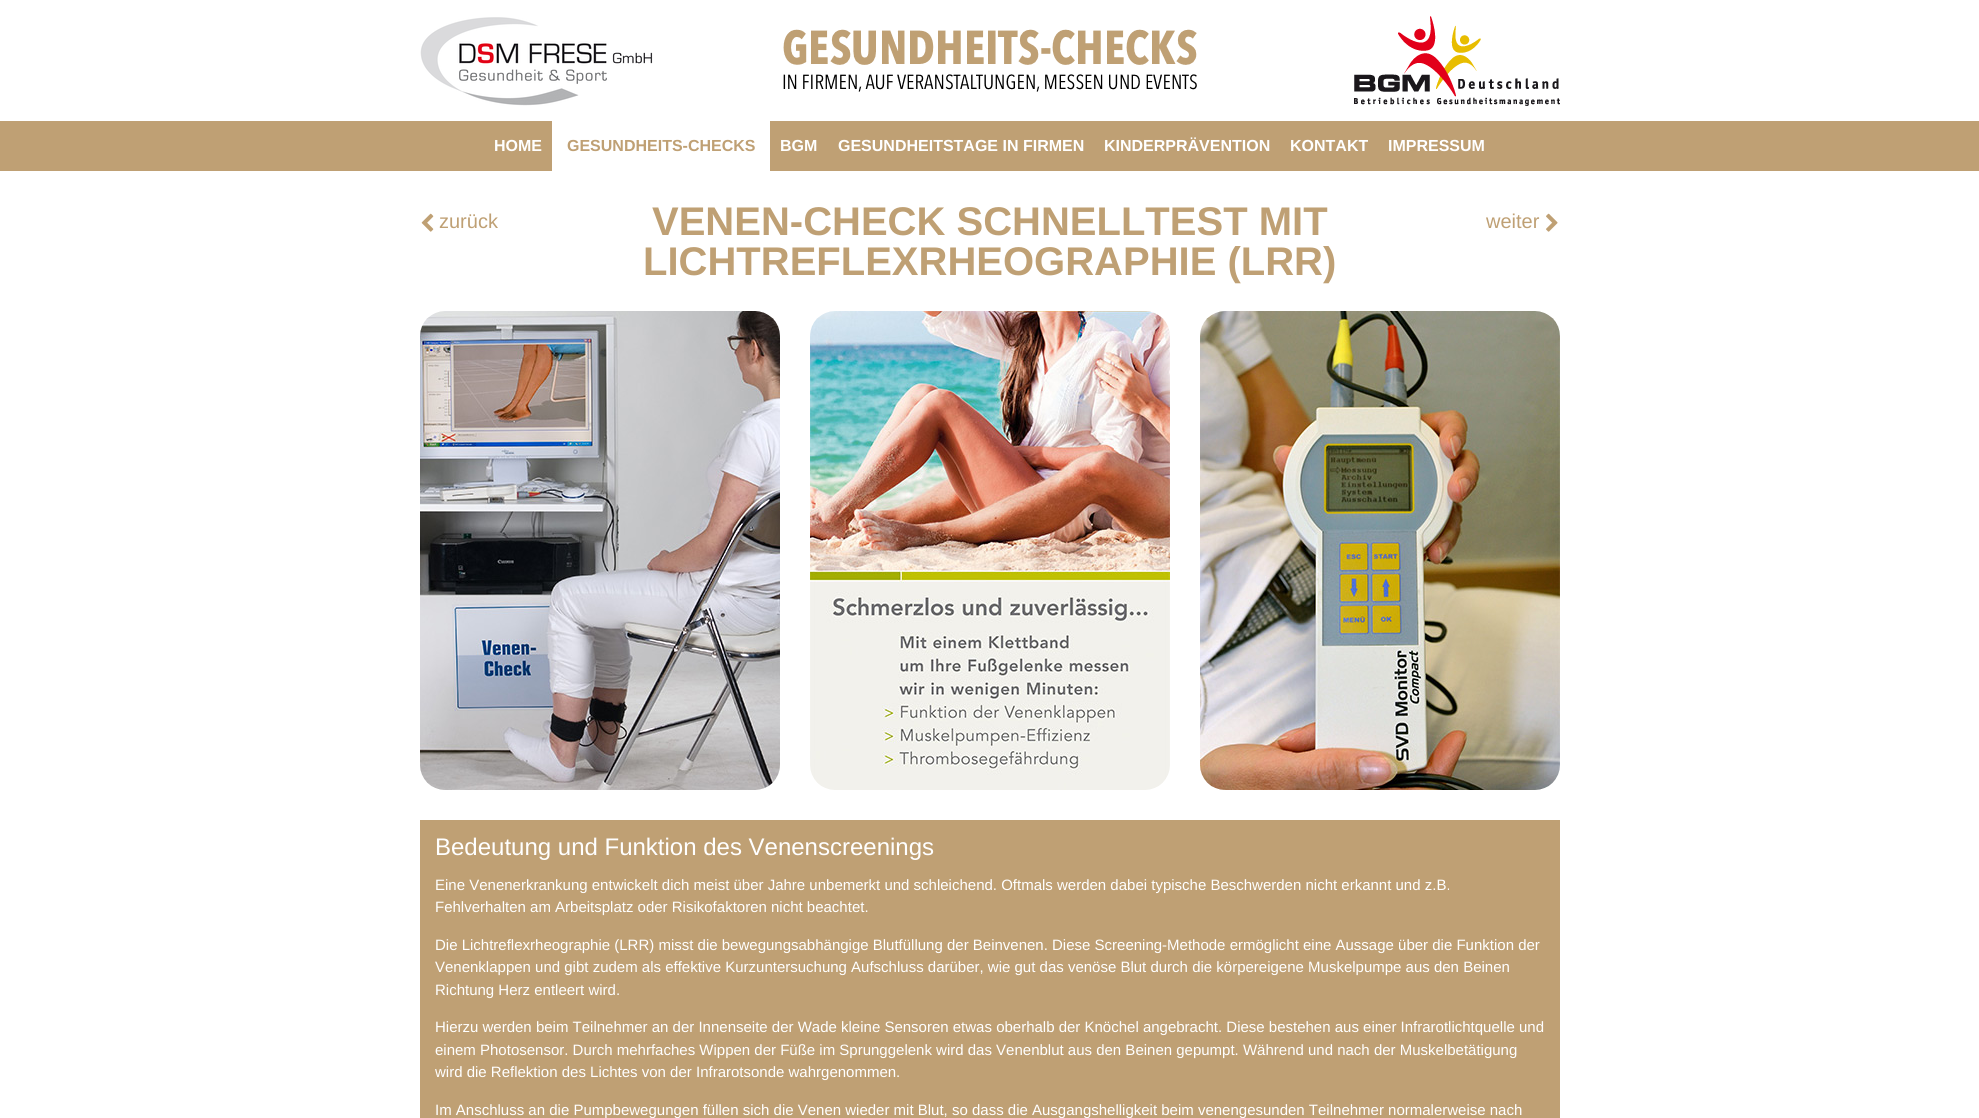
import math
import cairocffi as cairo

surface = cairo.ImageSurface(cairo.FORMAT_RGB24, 1979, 1118)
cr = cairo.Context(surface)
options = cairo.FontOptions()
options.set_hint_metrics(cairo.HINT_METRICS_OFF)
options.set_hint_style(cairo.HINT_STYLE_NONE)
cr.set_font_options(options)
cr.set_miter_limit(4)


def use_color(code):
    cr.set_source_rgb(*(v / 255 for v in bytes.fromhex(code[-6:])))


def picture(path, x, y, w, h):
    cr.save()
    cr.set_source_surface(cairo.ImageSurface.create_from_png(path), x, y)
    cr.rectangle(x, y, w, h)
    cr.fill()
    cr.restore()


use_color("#ffffff")
cr.paint()
picture("img1.png", 420, 17, 233, 89)
picture("img2.png", 783, 29, 414, 63)
picture("img3.png", 1354, 16, 206, 90)
use_color("#bfa074")
cr.rectangle(0, 121, 1979, 50)
cr.fill()
cr.select_font_face("Liberation Sans", cairo.FONT_SLANT_NORMAL, cairo.FONT_WEIGHT_BOLD)
cr.set_font_size(16)
use_color("#ffffff")
cr.move_to(494, 151)
cr.show_text("HOME")
cr.rectangle(552, 121, 218, 50)
cr.fill()
use_color("#bfa074")
cr.move_to(567, 151)
cr.show_text("GESUNDHEITS-CHECKS")
use_color("#ffffff")
cr.move_to(780, 151)
cr.show_text("BGM")
cr.move_to(838, 151)
cr.show_text("GESUNDHEITSTAGE IN FIRMEN")
cr.move_to(1104, 151)
cr.show_text("KINDERPRÄVENTION")
cr.move_to(1290, 151)
cr.show_text("KONTAKT")
cr.move_to(1388, 151)
cr.show_text("IMPRESSUM")
picture("img4.png", 421, 213, 13, 19)
cr.select_font_face("Liberation Sans")
cr.set_font_size(20)
use_color("#bfa074")
cr.move_to(439, 228)
cr.show_text("zurück")
cr.select_font_face("Liberation Sans", cairo.FONT_SLANT_NORMAL, cairo.FONT_WEIGHT_BOLD)
cr.set_font_size(40)
cr.move_to(652, 235)
cr.show_text("VENEN-CHECK SCHNELLTEST MIT")
cr.move_to(643, 275)
cr.show_text("LICHTREFLEXRHEOGRAPHIE (LRR)")
cr.select_font_face("Liberation Sans")
cr.set_font_size(20)
cr.move_to(1486, 228)
cr.show_text("weiter")
picture("img5.png", 1546, 213, 12, 19)
picture("img6.png", 420, 311, 360, 479)
picture("img7.png", 810, 311, 360, 479)
picture("img8.png", 1200, 311, 360, 479)
cr.rectangle(420, 820, 1140, 298)
cr.fill()
cr.set_font_size(24)
use_color("#ffffff")
cr.move_to(435, 855)
cr.show_text("Bedeutung und Funktion des Venenscreenings")
cr.set_font_size(15)
cr.move_to(435, 890)
cr.show_text("Eine Venenerkrankung entwickelt dich meist über Jahre unbemerkt und schleichend. Oftmals werden dabei typische Beschwerden nicht erkannt und z.B.")
cr.move_to(435, 912)
cr.show_text("Fehlverhalten am Arbeitsplatz oder Risikofaktoren nicht beachtet.")
cr.move_to(435, 950)
cr.show_text("Die Lichtreflexrheographie (LRR) misst die bewegungsabhängige Blutfüllung der Beinvenen. Diese Screening-Methode ermöglicht eine Aussage über die Funktion der")
cr.move_to(435, 972)
cr.show_text("Venenklappen und gibt zudem als effektive Kurzuntersuchung Aufschluss darüber, wie gut das venöse Blut durch die körpereigene Muskelpumpe aus den Beinen")
cr.move_to(435, 995)
cr.show_text("Richtung Herz entleert wird.")
cr.move_to(435, 1032)
cr.show_text("Hierzu werden beim Teilnehmer an der Innenseite der Wade kleine Sensoren etwas oberhalb der Knöchel angebracht. Diese bestehen aus einer Infrarotlichtquelle und")
cr.move_to(435, 1055)
cr.show_text("einem Photosensor. Durch mehrfaches Wippen der Füße im Sprunggelenk wird das Venenblut aus den Beinen gepumpt. Während und nach der Muskelbetätigung")
cr.move_to(435, 1077)
cr.show_text("wird die Reflektion des Lichtes von der Infrarotsonde wahrgenommen.")
cr.move_to(435, 1115)
cr.show_text("Im Anschluss an die Pumpbewegungen füllen sich die Venen wieder mit Blut, so dass die Ausgangshelligkeit beim venengesunden Teilnehmer normalerweise nach")
surface.write_to_png("result.png")
